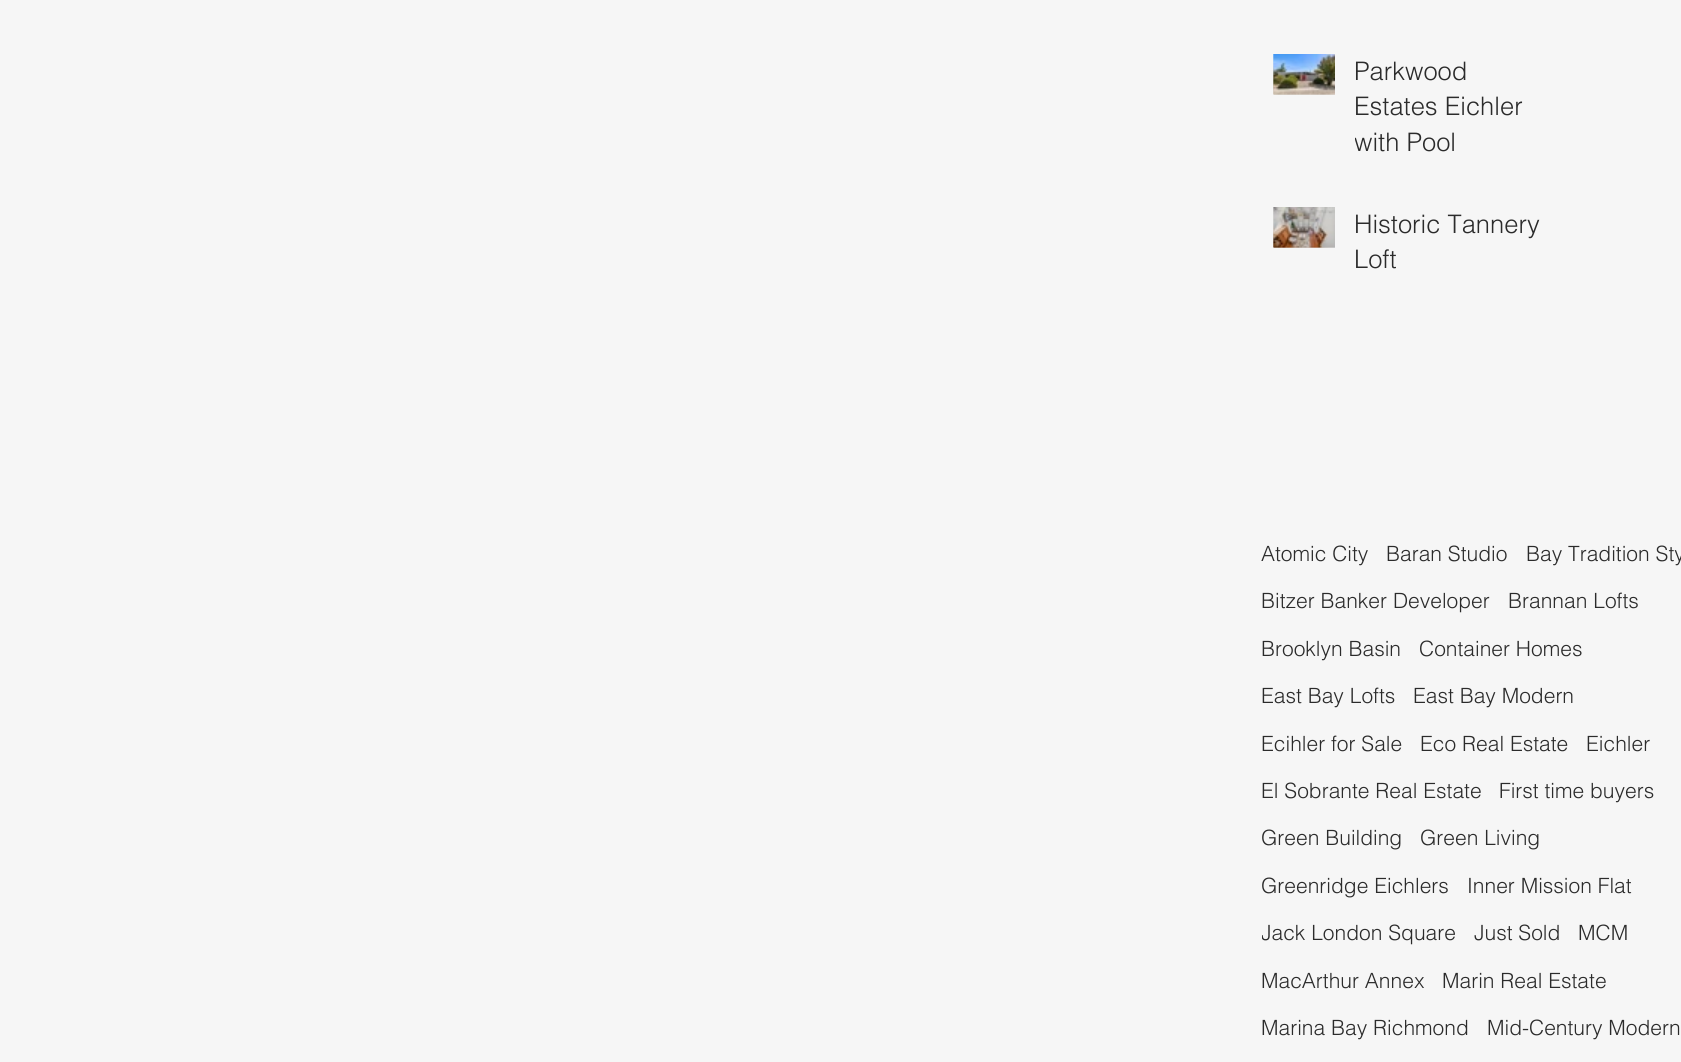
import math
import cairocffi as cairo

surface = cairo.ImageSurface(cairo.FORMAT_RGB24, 1681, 1062)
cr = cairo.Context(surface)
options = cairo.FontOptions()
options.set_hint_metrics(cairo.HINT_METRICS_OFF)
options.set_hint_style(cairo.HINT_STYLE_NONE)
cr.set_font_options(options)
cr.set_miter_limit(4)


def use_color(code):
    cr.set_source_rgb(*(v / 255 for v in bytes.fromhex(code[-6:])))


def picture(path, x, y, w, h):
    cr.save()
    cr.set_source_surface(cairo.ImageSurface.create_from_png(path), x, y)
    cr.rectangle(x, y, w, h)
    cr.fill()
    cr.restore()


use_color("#f6f6f6")
cr.paint()
picture("img1.png", 1273, 54, 62, 41)
picture("img2.png", 1273, 54, 62, 41)
cr.select_font_face("helvetica Light")
cr.set_font_size(25.5)
use_color("#2b2b2b")
cr.move_to(1354, 80)
cr.show_text("Parkwood")
cr.move_to(1354, 115)
cr.show_text("Estates Eichler")
cr.save()
cr.rectangle(1355, 53, 196, 106)
cr.clip()
cr.move_to(1354, 151)
cr.show_text("with Pool")
cr.restore()
picture("img3.png", 1273, 207, 62, 41)
picture("img4.png", 1273, 207, 62, 41)
cr.move_to(1354, 233)
cr.show_text("Historic Tannery")
cr.move_to(1354, 268)
cr.show_text("Loft")
cr.set_font_size(21)
cr.move_to(1261, 561)
cr.show_text("Atomic City")
cr.move_to(1386, 561)
cr.show_text("Baran Studio")
cr.move_to(1526, 561)
cr.show_text("Bay Tradition Sty")
cr.move_to(1261, 608)
cr.show_text("Bitzer Banker Developer")
cr.move_to(1508, 608)
cr.show_text("Brannan Lofts")
cr.move_to(1261, 656)
cr.show_text("Brooklyn Basin")
cr.move_to(1419, 656)
cr.show_text("Container Homes")
cr.move_to(1261, 703)
cr.show_text("East Bay Lofts")
cr.move_to(1413, 703)
cr.show_text("East Bay Modern")
cr.move_to(1261, 751)
cr.show_text("Ecihler for Sale")
cr.move_to(1420, 751)
cr.show_text("Eco Real Estate")
cr.move_to(1586, 751)
cr.show_text("Eichler")
cr.move_to(1261, 798)
cr.show_text("El Sobrante Real Estate")
cr.move_to(1499, 798)
cr.show_text("First time buyers")
cr.save()
cr.rectangle(1262, 825, 141, 29)
cr.clip()
cr.move_to(1261, 845)
cr.show_text("Green Building")
cr.restore()
cr.move_to(1420, 845)
cr.show_text("Green Living")
cr.save()
cr.rectangle(1262, 872, 187, 30)
cr.clip()
cr.move_to(1261, 893)
cr.show_text("Greenridge Eichlers")
cr.restore()
cr.move_to(1467, 893)
cr.show_text("Inner Mission Flat")
cr.save()
cr.rectangle(1262, 920, 193, 28)
cr.clip()
cr.move_to(1261, 940)
cr.show_text("Jack London Square")
cr.restore()
cr.move_to(1474, 940)
cr.show_text("Just Sold")
cr.move_to(1578, 940)
cr.show_text("MCM")
cr.move_to(1261, 988)
cr.show_text("MacArthur Annex")
cr.move_to(1442, 988)
cr.show_text("Marin Real Estate")
cr.move_to(1261, 1035)
cr.show_text("Marina Bay Richmond")
cr.move_to(1487, 1035)
cr.show_text("Mid-Century Modern")
surface.write_to_png("result.png")
